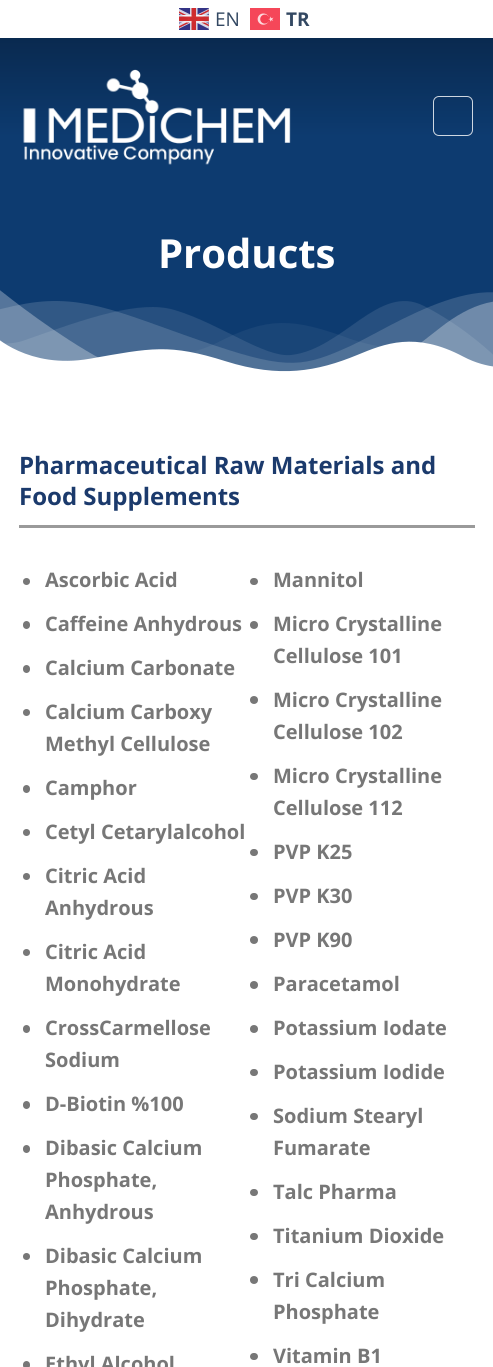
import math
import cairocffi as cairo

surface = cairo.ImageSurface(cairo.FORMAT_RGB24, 493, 1367)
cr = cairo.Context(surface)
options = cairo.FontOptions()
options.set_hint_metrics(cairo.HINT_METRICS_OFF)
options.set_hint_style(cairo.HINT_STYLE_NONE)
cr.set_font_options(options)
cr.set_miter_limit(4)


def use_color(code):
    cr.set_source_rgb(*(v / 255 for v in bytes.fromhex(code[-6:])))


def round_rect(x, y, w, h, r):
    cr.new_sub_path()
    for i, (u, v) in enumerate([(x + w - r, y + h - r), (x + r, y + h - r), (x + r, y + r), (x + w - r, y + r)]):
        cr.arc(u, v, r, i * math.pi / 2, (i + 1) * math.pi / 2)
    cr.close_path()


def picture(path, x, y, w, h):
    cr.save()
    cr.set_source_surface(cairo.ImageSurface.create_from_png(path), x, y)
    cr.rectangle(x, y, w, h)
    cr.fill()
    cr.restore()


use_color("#ffffff")
cr.paint()
picture("img1.png", 179, 8, 30, 22)
cr.select_font_face("Open Sans")
cr.set_font_size(19)
use_color("#334862")
cr.move_to(215, 26)
cr.show_text("EN")
picture("img2.png", 250, 8, 30, 22)
cr.select_font_face("Open Sans", cairo.FONT_SLANT_NORMAL, cairo.FONT_WEIGHT_BOLD)
cr.move_to(286, 26)
cr.show_text("TR")
gradient = cairo.LinearGradient(247, 0, 247, 195)
gradient.add_color_stop_rgba(0, 0.031, 0.137, 0.263, 1)
gradient.add_color_stop_rgba(0.7, 0.051, 0.231, 0.439, 1)
cr.set_source(gradient)
cr.rectangle(0, 38, 493, 157)
cr.fill()
picture("img3.png", 23, 69, 268, 96)
round_rect(433.5, 96.5, 39, 39, 5.5)
cr.set_source_rgba(1, 1, 1, 0.8)
cr.set_line_width(1)
cr.stroke()
use_color("#0d3b70")
cr.rectangle(0, 195, 493, 177)
cr.fill()
cr.set_font_size(40)
use_color("#ffffff")
cr.move_to(158, 268)
cr.show_text("Products")
picture("img4.png", 0, 290, 493, 85)
cr.set_font_size(24)
use_color("#1b3a6c")
cr.move_to(19, 474)
cr.show_text("Pharmaceutical Raw Materials and")
cr.move_to(19, 505)
cr.show_text("Food Supplements")
use_color("#9a9a9a")
cr.rectangle(19, 525, 456, 3)
cr.fill()
use_color("#777777")
cr.arc(26.5, 581.5, 3.5, 0, 2 * math.pi)
cr.fill()
cr.set_font_size(20)
cr.move_to(45, 587)
cr.show_text("Ascorbic Acid")
round_rect(23, 621, 7, 8, 3.5)
cr.fill()
cr.move_to(45, 631)
cr.show_text("Caffeine Anhydrous")
round_rect(23, 665, 7, 8, 3.5)
cr.fill()
cr.move_to(45, 675)
cr.show_text("Calcium Carbonate")
cr.new_path()
cr.arc(26.5, 712.5, 3.5, 0, 2 * math.pi)
cr.fill()
cr.move_to(45, 719)
cr.show_text("Calcium Carboxy")
cr.move_to(45, 751)
cr.show_text("Methyl Cellulose")
round_rect(23, 785, 7, 8, 3.5)
cr.fill()
cr.move_to(45, 795)
cr.show_text("Camphor")
cr.new_path()
cr.arc(26.5, 832.5, 3.5, 0, 2 * math.pi)
cr.fill()
cr.move_to(45, 839)
cr.show_text("Cetyl Cetarylalcohol")
cr.new_path()
cr.arc(26.5, 876.5, 3.5, 0, 2 * math.pi)
cr.fill()
cr.move_to(45, 883)
cr.show_text("Citric Acid")
cr.move_to(45, 915)
cr.show_text("Anhydrous")
cr.new_path()
cr.arc(26.5, 952.5, 3.5, 0, 2 * math.pi)
cr.fill()
cr.move_to(45, 959)
cr.show_text("Citric Acid")
cr.move_to(45, 991)
cr.show_text("Monohydrate")
round_rect(23, 1025, 7, 8, 3.5)
cr.fill()
cr.move_to(45, 1035)
cr.show_text("CrossCarmellose")
cr.move_to(45, 1067)
cr.show_text("Sodium")
round_rect(23, 1101, 7, 8, 3.5)
cr.fill()
cr.move_to(45, 1111)
cr.show_text("D-Biotin %100")
round_rect(23, 1145, 7, 8, 3.5)
cr.fill()
cr.move_to(45, 1155)
cr.show_text("Dibasic Calcium")
cr.move_to(45, 1187)
cr.show_text("Phosphate,")
cr.move_to(45, 1219)
cr.show_text("Anhydrous")
cr.new_path()
cr.arc(26.5, 1256.5, 3.5, 0, 2 * math.pi)
cr.fill()
cr.move_to(45, 1263)
cr.show_text("Dibasic Calcium")
cr.move_to(45, 1295)
cr.show_text("Phosphate,")
cr.move_to(45, 1327)
cr.show_text("Dihydrate")
round_rect(23, 1361, 7, 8, 3.5)
cr.fill()
cr.move_to(45, 1371)
cr.show_text("Ethyl Alcohol")
round_rect(250, 578, 8, 7, 3.5)
cr.fill()
cr.move_to(273, 587)
cr.show_text("Mannitol")
cr.new_path()
cr.arc(254, 625, 4, 0, 2 * math.pi)
cr.fill()
cr.move_to(273, 631)
cr.show_text("Micro Crystalline")
cr.move_to(273, 663)
cr.show_text("Cellulose 101")
cr.new_path()
cr.arc(254, 700, 4, 0, 2 * math.pi)
cr.fill()
cr.move_to(273, 707)
cr.show_text("Micro Crystalline")
cr.move_to(273, 739)
cr.show_text("Cellulose 102")
round_rect(250, 773, 8, 7, 3.5)
cr.fill()
cr.move_to(273, 783)
cr.show_text("Micro Crystalline")
cr.move_to(273, 815)
cr.show_text("Cellulose 112")
round_rect(250, 849, 8, 7, 3.5)
cr.fill()
cr.move_to(273, 859)
cr.show_text("PVP K25")
round_rect(250, 893, 8, 7, 3.5)
cr.fill()
cr.move_to(273, 903)
cr.show_text("PVP K30")
cr.new_path()
cr.arc(254, 940, 4, 0, 2 * math.pi)
cr.fill()
cr.move_to(273, 947)
cr.show_text("PVP K90")
cr.new_path()
cr.arc(254, 985, 4, 0, 2 * math.pi)
cr.fill()
cr.move_to(273, 991)
cr.show_text("Paracetamol")
cr.new_path()
cr.arc(254, 1029, 4, 0, 2 * math.pi)
cr.fill()
cr.move_to(273, 1035)
cr.show_text("Potassium Iodate")
round_rect(250, 1069, 8, 7, 3.5)
cr.fill()
cr.move_to(273, 1079)
cr.show_text("Potassium Iodide")
round_rect(250, 1113, 8, 7, 3.5)
cr.fill()
cr.move_to(273, 1123)
cr.show_text("Sodium Stearyl")
cr.move_to(273, 1155)
cr.show_text("Fumarate")
round_rect(250, 1189, 8, 7, 3.5)
cr.fill()
cr.move_to(273, 1199)
cr.show_text("Talc Pharma")
round_rect(250, 1233, 8, 7, 3.5)
cr.fill()
cr.move_to(273, 1243)
cr.show_text("Titanium Dioxide")
cr.new_path()
cr.arc(254, 1280, 4, 0, 2 * math.pi)
cr.fill()
cr.move_to(273, 1287)
cr.show_text("Tri Calcium")
cr.move_to(273, 1319)
cr.show_text("Phosphate")
round_rect(250, 1353, 8, 7, 3.5)
cr.fill()
cr.move_to(273, 1363)
cr.show_text("Vitamin B1")
surface.write_to_png("result.png")
